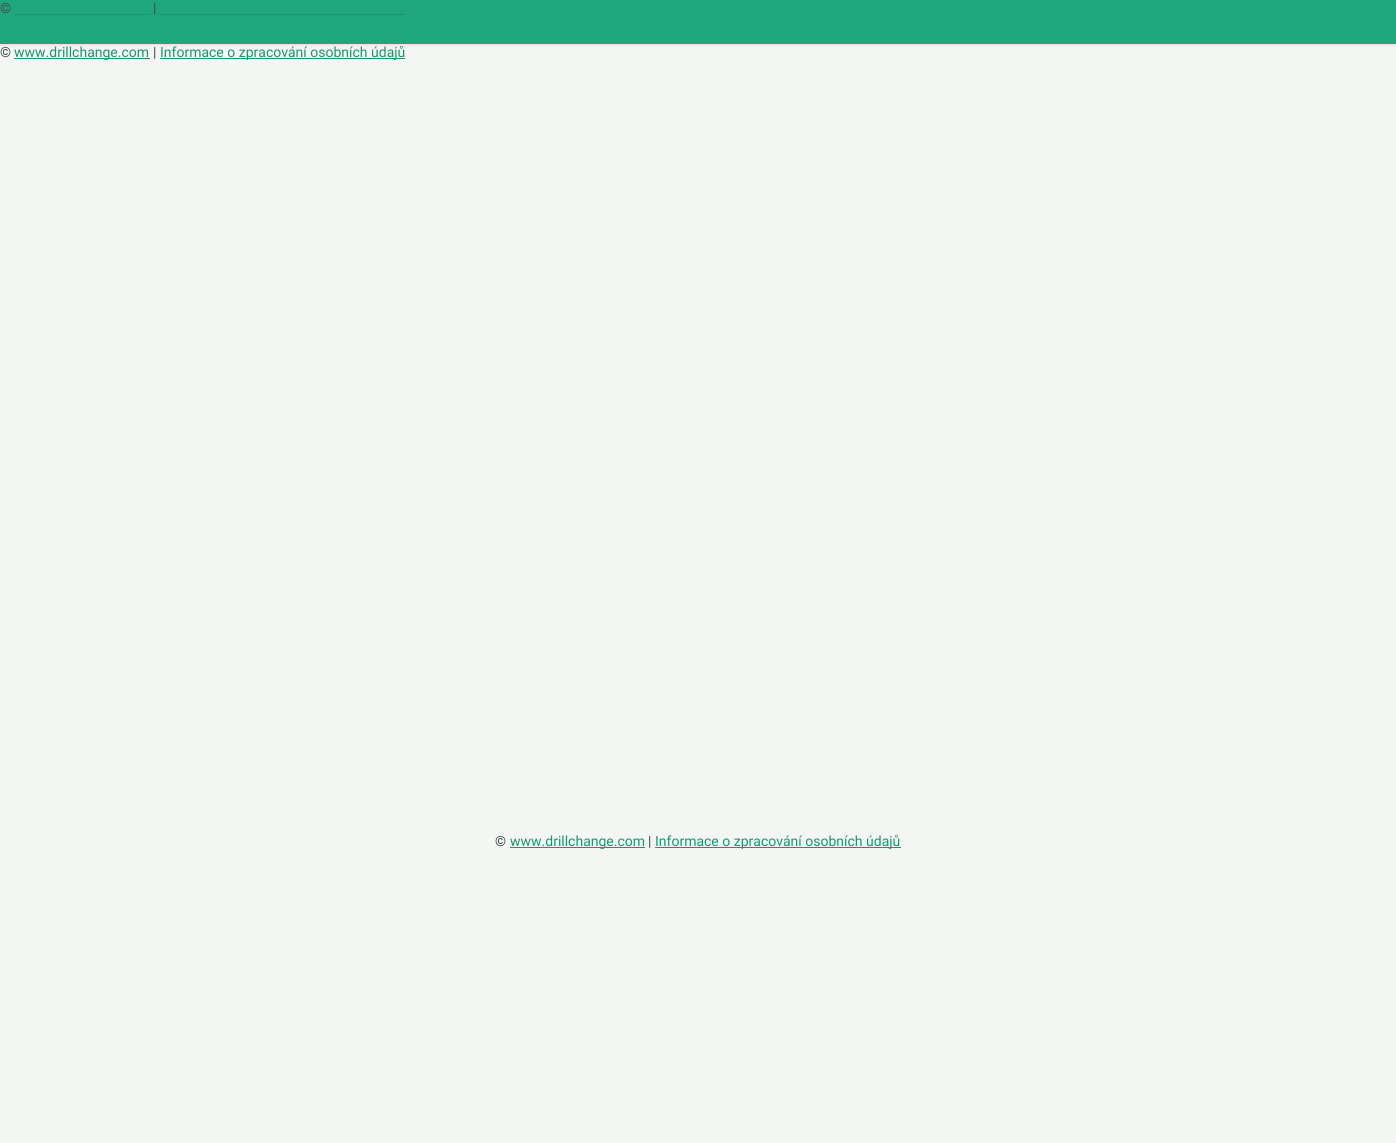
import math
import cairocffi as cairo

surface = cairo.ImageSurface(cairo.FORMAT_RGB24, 1396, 1143)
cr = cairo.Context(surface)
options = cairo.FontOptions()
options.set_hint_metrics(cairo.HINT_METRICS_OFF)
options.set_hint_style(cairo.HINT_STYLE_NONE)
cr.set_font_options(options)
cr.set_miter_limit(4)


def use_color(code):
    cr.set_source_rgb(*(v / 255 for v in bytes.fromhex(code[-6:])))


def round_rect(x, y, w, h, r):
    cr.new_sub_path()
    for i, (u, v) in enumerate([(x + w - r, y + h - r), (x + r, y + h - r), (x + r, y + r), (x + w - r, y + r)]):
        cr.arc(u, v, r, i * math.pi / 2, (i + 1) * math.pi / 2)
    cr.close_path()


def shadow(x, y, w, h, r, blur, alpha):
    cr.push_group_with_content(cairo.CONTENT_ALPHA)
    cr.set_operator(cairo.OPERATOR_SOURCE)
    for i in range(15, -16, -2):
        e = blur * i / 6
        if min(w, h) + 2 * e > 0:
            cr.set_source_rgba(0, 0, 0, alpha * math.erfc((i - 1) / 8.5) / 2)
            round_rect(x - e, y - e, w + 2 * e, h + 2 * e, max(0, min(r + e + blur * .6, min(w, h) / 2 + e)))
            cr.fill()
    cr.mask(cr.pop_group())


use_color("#f4f6f4")
cr.paint()
use_color("#cfcfcf")
shadow(0, 0, 1396, 44, 0, 2, 1)
use_color("#1fa67a")
cr.rectangle(0, 0, 1396, 44)
cr.fill()
cr.select_font_face("Roboto")
cr.set_font_size(14)
use_color("#42484e")
cr.move_to(0, 13)
cr.show_text("©")
use_color("#1a956d")
cr.rectangle(14, 14, 136, 1)
cr.fill()
use_color("#42484e")
cr.move_to(153, 13)
cr.show_text("|")
use_color("#1a956d")
cr.rectangle(160, 14, 245, 1)
cr.fill()
use_color("#42484e")
cr.move_to(0, 57)
cr.show_text("©")
use_color("#1a956d")
cr.rectangle(14, 58, 136, 1)
cr.fill()
cr.move_to(14, 57)
cr.show_text("www.drillchange.com")
use_color("#42484e")
cr.move_to(153, 57)
cr.show_text("|")
use_color("#1a956d")
cr.rectangle(160, 58, 245, 1)
cr.fill()
cr.move_to(160, 57)
cr.show_text("Informace o zpracování osobních údajů")
use_color("#42484e")
cr.move_to(495, 846)
cr.show_text("©")
use_color("#1a956d")
cr.rectangle(510, 847, 135, 1)
cr.fill()
cr.move_to(510, 846)
cr.show_text("www.drillchange.com")
use_color("#42484e")
cr.move_to(648, 846)
cr.show_text("|")
use_color("#1a956d")
cr.rectangle(655, 847, 246, 1)
cr.fill()
cr.move_to(655, 846)
cr.show_text("Informace o zpracování osobních údajů")
surface.write_to_png("result.png")
